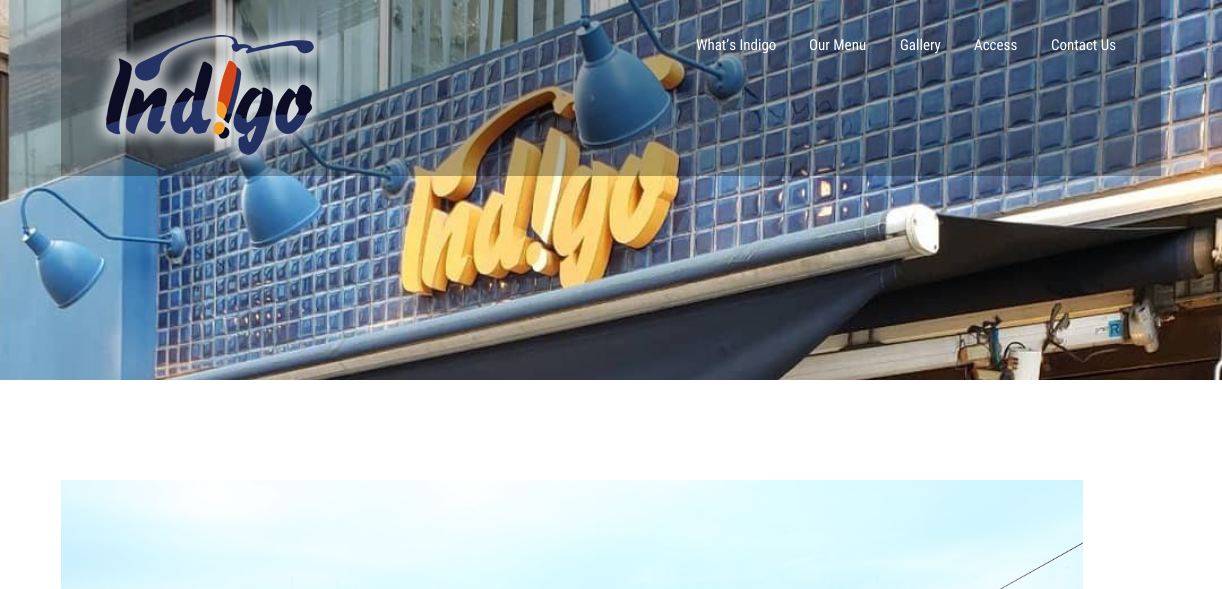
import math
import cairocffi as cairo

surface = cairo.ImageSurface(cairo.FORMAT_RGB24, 1222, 589)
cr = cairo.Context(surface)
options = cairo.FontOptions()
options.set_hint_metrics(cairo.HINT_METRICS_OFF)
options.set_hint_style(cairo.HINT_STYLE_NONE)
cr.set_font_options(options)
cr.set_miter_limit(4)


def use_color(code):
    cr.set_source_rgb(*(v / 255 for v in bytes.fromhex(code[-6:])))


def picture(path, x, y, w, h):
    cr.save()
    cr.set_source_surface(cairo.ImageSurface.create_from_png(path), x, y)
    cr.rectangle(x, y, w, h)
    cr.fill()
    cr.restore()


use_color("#ffffff")
cr.paint()
picture("img1.png", 0, 0, 1222, 380)
cr.set_source_rgba(0, 0, 0, 0.3)
cr.rectangle(61, 0, 1100, 176)
cr.fill()
picture("img2.png", 91, 20, 236, 150)
cr.select_font_face("Roboto Condensed")
cr.set_font_size(15)
use_color("#ffffff")
cr.move_to(696, 50)
cr.show_text("What’s Indigo")
cr.move_to(809, 50)
cr.show_text("Our Menu")
cr.move_to(900, 50)
cr.show_text("Gallery")
cr.move_to(974, 50)
cr.show_text("Access")
cr.move_to(1051, 50)
cr.show_text("Contact Us")
picture("img3.png", 61, 480, 1022, 109)
surface.write_to_png("result.png")
